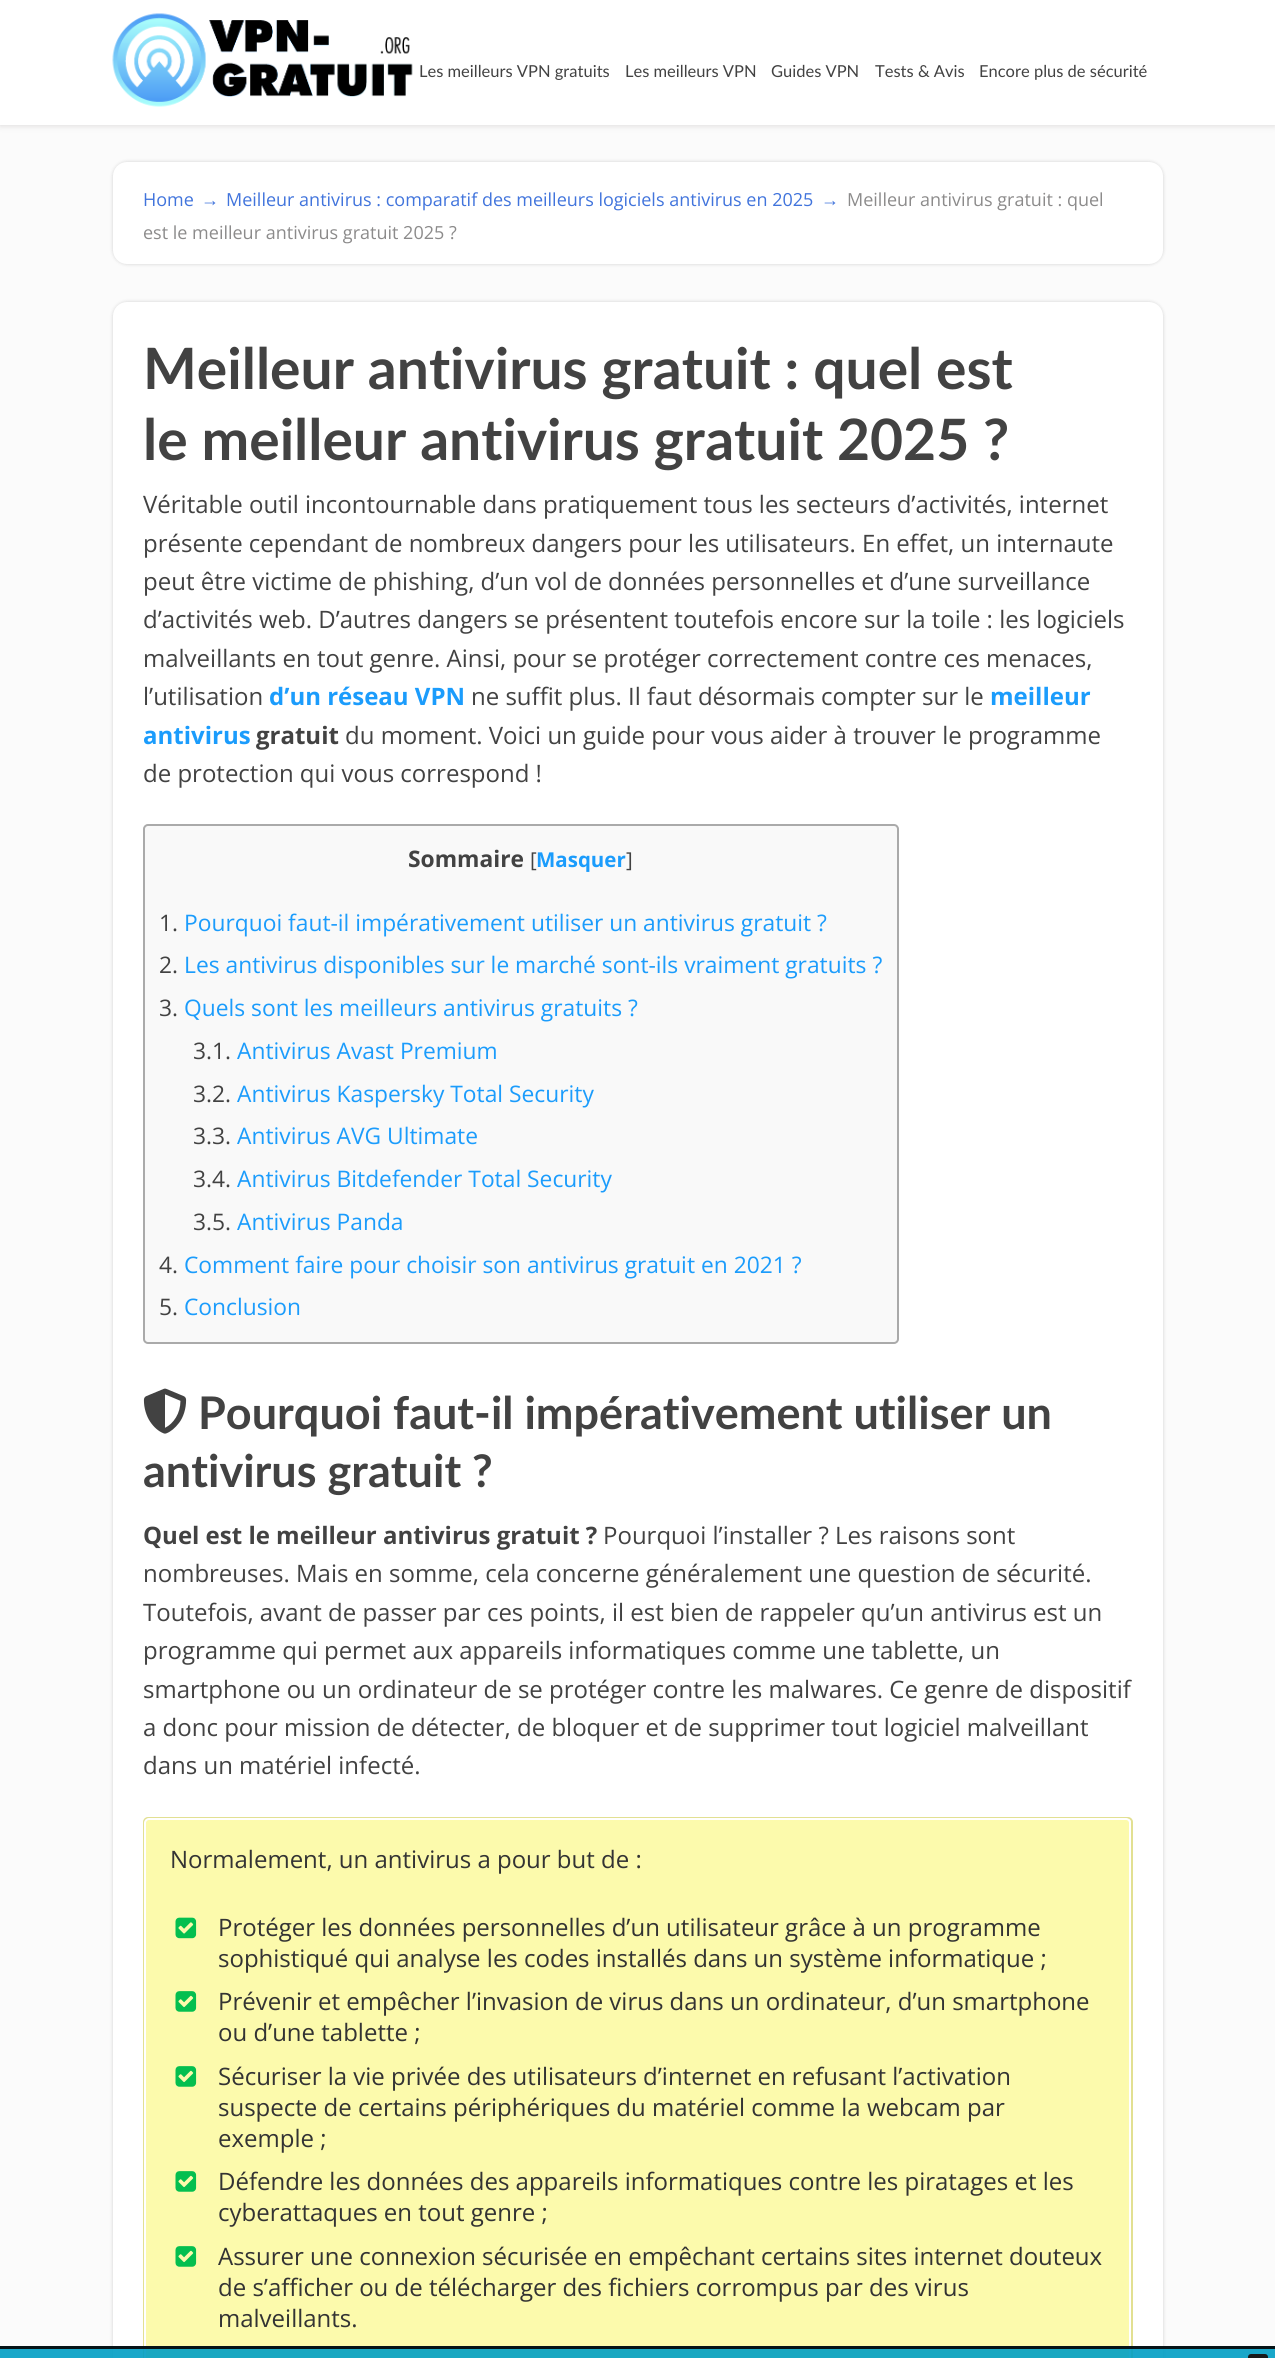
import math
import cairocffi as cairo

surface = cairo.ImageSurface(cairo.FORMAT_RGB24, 1275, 2358)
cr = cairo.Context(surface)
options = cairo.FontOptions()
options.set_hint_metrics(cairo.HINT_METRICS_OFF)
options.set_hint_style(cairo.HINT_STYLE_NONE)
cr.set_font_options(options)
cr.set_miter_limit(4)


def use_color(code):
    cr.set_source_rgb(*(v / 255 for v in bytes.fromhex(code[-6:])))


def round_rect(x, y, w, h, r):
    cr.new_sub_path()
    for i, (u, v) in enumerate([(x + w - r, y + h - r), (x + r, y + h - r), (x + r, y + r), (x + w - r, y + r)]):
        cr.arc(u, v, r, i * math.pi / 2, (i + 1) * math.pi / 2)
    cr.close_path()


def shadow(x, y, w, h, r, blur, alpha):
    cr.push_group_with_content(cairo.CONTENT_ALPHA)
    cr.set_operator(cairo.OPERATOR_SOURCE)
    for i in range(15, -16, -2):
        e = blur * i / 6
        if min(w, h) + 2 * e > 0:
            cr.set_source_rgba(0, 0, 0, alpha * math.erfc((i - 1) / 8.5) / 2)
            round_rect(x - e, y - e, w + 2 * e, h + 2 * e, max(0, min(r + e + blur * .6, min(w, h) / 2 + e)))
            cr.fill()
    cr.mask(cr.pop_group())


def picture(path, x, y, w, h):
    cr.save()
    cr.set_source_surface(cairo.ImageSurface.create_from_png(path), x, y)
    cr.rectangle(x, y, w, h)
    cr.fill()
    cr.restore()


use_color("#fbfbfb")
cr.paint()
use_color("#dfdddd")
shadow(0, 2, 1275, 124, 0, 3, 1)
use_color("#ffffff")
cr.rectangle(0, 0, 1275, 125)
cr.fill()
picture("img1.png", 112, 13, 301, 94)
cr.select_font_face("Lato")
cr.set_font_size(16.5)
use_color("#424242")
cr.move_to(419, 77)
cr.show_text("Les meilleurs VPN gratuits")
cr.move_to(625, 77)
cr.show_text("Les meilleurs VPN")
cr.move_to(771, 77)
cr.show_text("Guides VPN")
cr.move_to(875, 77)
cr.show_text("Tests & Avis")
cr.move_to(979, 77)
cr.show_text("Encore plus de sécurité")
use_color("#010101")
shadow(113, 162, 1050, 102, 14, 2, 0.16)
use_color("#ffffff")
round_rect(113, 162, 1050, 102, 14)
cr.fill()
cr.select_font_face("Open Sans")
cr.set_font_size(18)
use_color("#4174dc")
cr.move_to(143, 206)
cr.show_text("Home")
cr.select_font_face("Liberation Sans")
cr.move_to(201, 206)
cr.show_text("→")
cr.select_font_face("Open Sans")
cr.move_to(226, 206)
cr.show_text("Meilleur antivirus : comparatif des meilleurs logiciels antivirus en 2025")
cr.select_font_face("Liberation Sans")
cr.move_to(821, 206)
cr.show_text("→")
cr.select_font_face("Open Sans")
use_color("#8c8b8b")
cr.move_to(847, 206)
cr.show_text("Meilleur antivirus gratuit : quel")
cr.move_to(143, 239)
cr.show_text("est le meilleur antivirus gratuit 2025 ?")
use_color("#010101")
shadow(113, 302, 1050, 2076, 14, 2, 0.16)
use_color("#ffffff")
round_rect(113, 302, 1050, 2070, 14)
cr.fill()
cr.select_font_face("Lato", cairo.FONT_SLANT_NORMAL, cairo.FONT_WEIGHT_BOLD)
cr.set_font_size(57)
use_color("#424242")
cr.move_to(143, 389)
cr.show_text("Meilleur antivirus gratuit : quel est")
cr.move_to(143, 460)
cr.show_text("le meilleur antivirus gratuit 2025 ?")
cr.select_font_face("Open Sans")
cr.set_font_size(24)
cr.move_to(143, 513)
cr.show_text("Véritable outil incontournable dans pratiquement tous les secteurs d’activités, internet")
cr.move_to(143, 552)
cr.show_text("présente cependant de nombreux dangers pour les utilisateurs. En effet, un internaute")
cr.move_to(143, 590)
cr.show_text("peut être victime de phishing, d’un vol de données personnelles et d’une surveillance")
cr.move_to(143, 628)
cr.show_text("d’activités web. D’autres dangers se présentent toutefois encore sur la toile : les logiciels")
cr.move_to(143, 667)
cr.show_text("malveillants en tout genre. Ainsi, pour se protéger correctement contre ces menaces,")
cr.move_to(143, 705)
cr.show_text("l’utilisation")
cr.select_font_face("Open Sans", cairo.FONT_SLANT_NORMAL, cairo.FONT_WEIGHT_BOLD)
use_color("#1b9cfc")
cr.move_to(269, 705)
cr.show_text("d’un réseau VPN")
cr.select_font_face("Open Sans")
use_color("#424242")
cr.move_to(471, 705)
cr.show_text("ne suffit plus. Il faut désormais compter sur le")
cr.select_font_face("Open Sans", cairo.FONT_SLANT_NORMAL, cairo.FONT_WEIGHT_BOLD)
use_color("#1b9cfc")
cr.move_to(990, 705)
cr.show_text("meilleur")
cr.move_to(143, 744)
cr.show_text("antivirus")
use_color("#424242")
cr.move_to(256, 744)
cr.show_text("gratuit")
cr.select_font_face("Open Sans")
cr.move_to(345, 744)
cr.show_text("du moment. Voici un guide pour vous aider à trouver le programme")
cr.move_to(143, 782)
cr.show_text("de protection qui vous correspond !")
use_color("#f9f9f9")
round_rect(144, 825, 754, 518, 4)
cr.fill_preserve()
use_color("#aaaaaa")
cr.stroke()
cr.select_font_face("Open Sans", cairo.FONT_SLANT_NORMAL, cairo.FONT_WEIGHT_BOLD)
cr.set_font_size(22.8)
use_color("#424242")
cr.move_to(408, 867)
cr.show_text("Sommaire")
cr.select_font_face("Open Sans")
cr.set_font_size(20.5)
cr.move_to(530, 867)
cr.show_text("[")
cr.select_font_face("Open Sans", cairo.FONT_SLANT_NORMAL, cairo.FONT_WEIGHT_BOLD)
use_color("#1b9cfc")
cr.move_to(536, 867)
cr.show_text("Masquer")
cr.select_font_face("Open Sans")
use_color("#424242")
cr.move_to(626, 867)
cr.show_text("]")
cr.set_font_size(22.8)
cr.move_to(159, 931)
cr.show_text("1.")
use_color("#1b9cfc")
cr.move_to(184, 931)
cr.show_text("Pourquoi faut-il impérativement utiliser un antivirus gratuit ?")
use_color("#424242")
cr.move_to(159, 973)
cr.show_text("2.")
use_color("#1b9cfc")
cr.move_to(184, 973)
cr.show_text("Les antivirus disponibles sur le marché sont-ils vraiment gratuits ?")
use_color("#424242")
cr.move_to(159, 1016)
cr.show_text("3.")
use_color("#1b9cfc")
cr.move_to(184, 1016)
cr.show_text("Quels sont les meilleurs antivirus gratuits ?")
use_color("#424242")
cr.move_to(193, 1059)
cr.show_text("3.1.")
use_color("#1b9cfc")
cr.move_to(237, 1059)
cr.show_text("Antivirus Avast Premium")
use_color("#424242")
cr.move_to(193, 1102)
cr.show_text("3.2.")
use_color("#1b9cfc")
cr.move_to(237, 1102)
cr.show_text("Antivirus Kaspersky Total Security")
use_color("#424242")
cr.move_to(193, 1144)
cr.show_text("3.3.")
use_color("#1b9cfc")
cr.move_to(237, 1144)
cr.show_text("Antivirus AVG Ultimate")
use_color("#424242")
cr.move_to(193, 1187)
cr.show_text("3.4.")
use_color("#1b9cfc")
cr.move_to(237, 1187)
cr.show_text("Antivirus Bitdefender Total Security")
use_color("#424242")
cr.move_to(193, 1230)
cr.show_text("3.5.")
use_color("#1b9cfc")
cr.move_to(237, 1230)
cr.show_text("Antivirus Panda")
use_color("#424242")
cr.move_to(159, 1273)
cr.show_text("4.")
use_color("#1b9cfc")
cr.move_to(184, 1273)
cr.show_text("Comment faire pour choisir son antivirus gratuit en 2021 ?")
use_color("#424242")
cr.move_to(159, 1315)
cr.show_text("5.")
use_color("#1b9cfc")
cr.move_to(184, 1315)
cr.show_text("Conclusion")
picture("img2.png", 143, 1388, 44, 46)
cr.select_font_face("Lato", cairo.FONT_SLANT_NORMAL, cairo.FONT_WEIGHT_BOLD)
cr.set_font_size(45)
use_color("#424242")
cr.move_to(198, 1429)
cr.show_text("Pourquoi faut-il impérativement utiliser un")
cr.move_to(143, 1487)
cr.show_text("antivirus gratuit ?")
cr.select_font_face("Open Sans", cairo.FONT_SLANT_NORMAL, cairo.FONT_WEIGHT_BOLD)
cr.set_font_size(24)
cr.move_to(143, 1544)
cr.show_text("Quel est le meilleur antivirus gratuit ?")
cr.select_font_face("Open Sans")
cr.move_to(603, 1544)
cr.show_text("Pourquoi l’installer ? Les raisons sont")
cr.move_to(143, 1582)
cr.show_text("nombreuses. Mais en somme, cela concerne généralement une question de sécurité.")
cr.move_to(143, 1621)
cr.show_text("Toutefois, avant de passer par ces points, il est bien de rappeler qu’un antivirus est un")
cr.move_to(143, 1659)
cr.show_text("programme qui permet aux appareils informatiques comme une tablette, un")
cr.move_to(143, 1698)
cr.show_text("smartphone ou un ordinateur de se protéger contre les malwares. Ce genre de dispositif")
cr.move_to(143, 1736)
cr.show_text("a donc pour mission de détecter, de bloquer et de supprimer tout logiciel malveillant")
cr.move_to(143, 1774)
cr.show_text("dans un matériel infecté.")
round_rect(144, 1818, 988, 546, 4)
use_color("#e2e092")
cr.stroke()
use_color("#fcfaac")
round_rect(145, 1819, 985, 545, 4)
cr.fill_preserve()
use_color("#ffffff")
cr.stroke()
use_color("#333333")
cr.move_to(170, 1868)
cr.show_text("Normalement, un antivirus a pour but de :")
picture("img3.png", 175, 1917, 22, 22)
cr.move_to(218, 1936)
cr.show_text("Protéger les données personnelles d’un utilisateur grâce à un programme")
cr.move_to(218, 1967)
cr.show_text("sophistiqué qui analyse les codes installés dans un système informatique ;")
picture("img4.png", 175, 1991, 22, 21)
cr.move_to(218, 2010)
cr.show_text("Prévenir et empêcher l’invasion de virus dans un ordinateur, d’un smartphone")
cr.move_to(218, 2041)
cr.show_text("ou d’une tablette ;")
picture("img4.png", 175, 2066, 22, 21)
cr.move_to(218, 2085)
cr.show_text("Sécuriser la vie privée des utilisateurs d’internet en refusant l’activation")
cr.move_to(218, 2116)
cr.show_text("suspecte de certains périphériques du matériel comme la webcam par")
cr.move_to(218, 2147)
cr.show_text("exemple ;")
picture("img4.png", 175, 2171, 22, 21)
cr.move_to(218, 2190)
cr.show_text("Défendre les données des appareils informatiques contre les piratages et les")
cr.move_to(218, 2221)
cr.show_text("cyberattaques en tout genre ;")
picture("img4.png", 175, 2246, 22, 21)
cr.move_to(218, 2265)
cr.show_text("Assurer une connexion sécurisée en empêchant certains sites internet douteux")
cr.move_to(218, 2296)
cr.show_text("de s’afficher ou de télécharger des fichiers corrompus par des virus")
cr.move_to(218, 2327)
cr.show_text("malveillants.")
cr.set_source_rgba(0, 0.62, 0.765, 0.9)
cr.rectangle(0, 2346, 1275, 12)
cr.fill()
cr.set_source_rgba(0.02, 0.016, 0.016, 0.9)
cr.rectangle(0, 2346, 1275, 3)
cr.fill()
use_color("#191919")
round_rect(1249, 2355, 18, 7, 2)
cr.fill_preserve()
cr.stroke()
surface.write_to_png("result.png")
